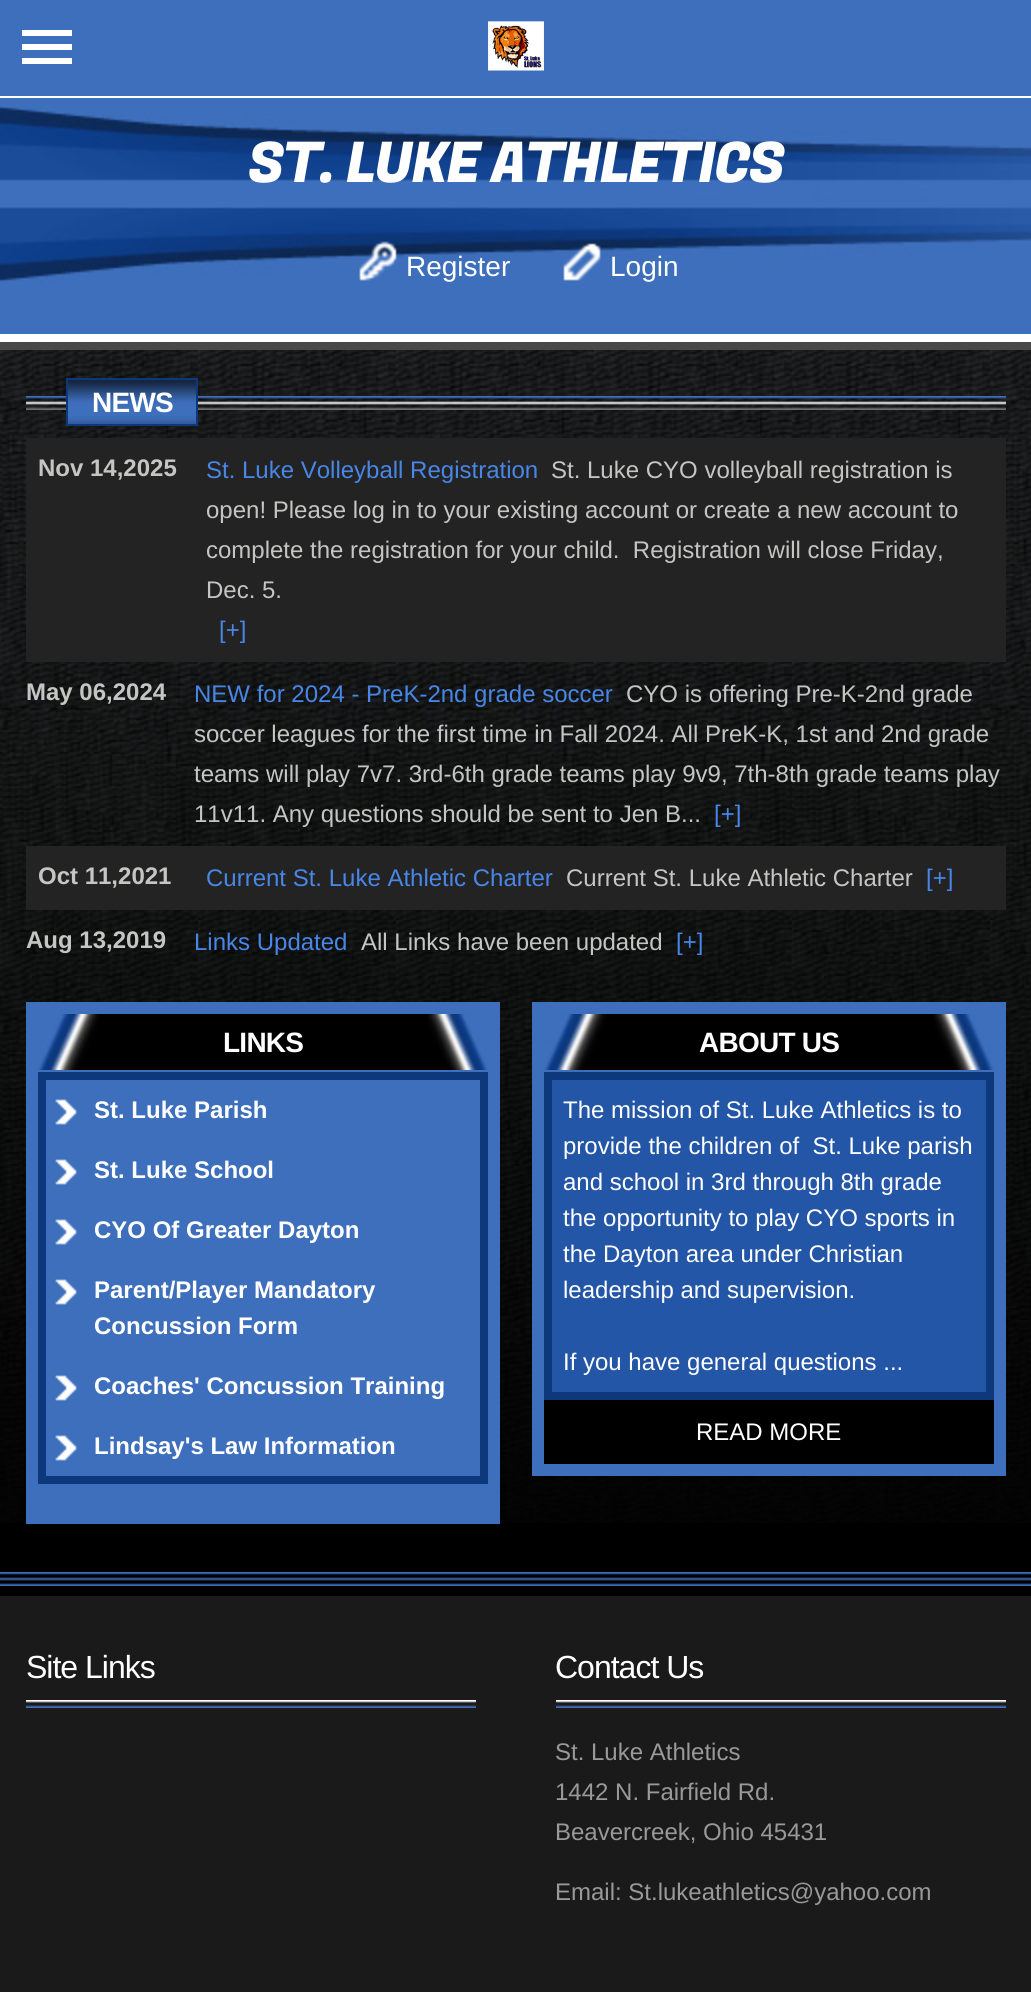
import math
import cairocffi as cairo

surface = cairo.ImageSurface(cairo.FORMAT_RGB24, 1031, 1992)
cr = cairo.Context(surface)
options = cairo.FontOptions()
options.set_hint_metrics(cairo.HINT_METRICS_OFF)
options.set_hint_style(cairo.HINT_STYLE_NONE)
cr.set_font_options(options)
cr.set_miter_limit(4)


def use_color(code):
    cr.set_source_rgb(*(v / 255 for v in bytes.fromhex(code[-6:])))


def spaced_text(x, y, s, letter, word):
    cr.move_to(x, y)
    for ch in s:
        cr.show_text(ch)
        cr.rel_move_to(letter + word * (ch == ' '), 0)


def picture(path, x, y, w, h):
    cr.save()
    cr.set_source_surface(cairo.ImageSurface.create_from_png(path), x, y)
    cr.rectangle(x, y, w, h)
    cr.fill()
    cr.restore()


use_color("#000000")
cr.paint()
use_color("#3e6fbc")
cr.rectangle(0, 0, 1031, 96)
cr.fill()
use_color("#ffffff")
cr.rectangle(0, 96, 1031, 2)
cr.fill()
cr.new_path()
cr.move_to(22, 30)
cr.line_to(72, 30)
cr.line_to(72, 36)
cr.line_to(22, 36)
cr.close_path()
cr.move_to(22, 44)
cr.line_to(72, 44)
cr.line_to(72, 50)
cr.line_to(22, 50)
cr.close_path()
cr.move_to(22, 58)
cr.line_to(72, 58)
cr.line_to(72, 64)
cr.line_to(22, 64)
cr.close_path()
cr.fill()
picture("img1.png", 488, 21, 56, 50)
picture("img2.png", 0, 350, 1031, 1173)
use_color("#484848")
cr.rectangle(0, 342, 1031, 8)
cr.fill()
use_color("#3e6fbc")
cr.rectangle(0, 98, 1031, 236)
cr.fill()
picture("img3.png", 0, 106, 1031, 176)
use_color("#ffffff")
cr.rectangle(0, 334, 1031, 8)
cr.fill()
cr.select_font_face("Fugaz One")
cr.set_font_size(56)
spaced_text(248, 182, "ST. LUKE ATHLETICS", -1.7, 0)
picture("img4.png", 359, 241, 38, 40)
cr.select_font_face("Liberation Sans")
cr.set_font_size(28)
cr.move_to(406, 276)
cr.show_text("Register")
picture("img5.png", 563, 243, 38, 38)
cr.move_to(610, 276)
cr.show_text("Login")
picture("img6.png", 26, 396, 980, 14)
use_color("#16263f")
cr.rectangle(68, 380, 128, 2)
cr.fill()
picture("img7.png", 68, 382, 128, 42)
cr.rectangle(67, 379, 130, 46)
use_color("#0d387c")
cr.stroke()
cr.select_font_face("Liberation Sans", cairo.FONT_SLANT_NORMAL, cairo.FONT_WEIGHT_BOLD)
use_color("#ffffff")
spaced_text(92, 412, "NEWS", -0.75, 0)
use_color("#232323")
cr.rectangle(26, 438, 980, 224)
cr.fill()
cr.set_font_size(24)
use_color("#c5c5c4")
cr.move_to(38, 476)
cr.show_text("Nov 14,2025")
cr.select_font_face("Liberation Sans")
use_color("#4886e7")
cr.move_to(206, 478)
cr.show_text("St. Luke Volleyball Registration")
use_color("#c5c5c4")
cr.move_to(551, 478)
cr.show_text("St. Luke CYO volleyball registration is")
cr.move_to(206, 518)
cr.show_text("open! Please log in to your existing account or create a new account to")
cr.move_to(206, 558)
cr.show_text("complete the registration for your child.  Registration will close Friday,")
cr.move_to(206, 598)
cr.show_text("Dec. 5.")
use_color("#4886e7")
cr.move_to(219, 638)
cr.show_text("[+]")
cr.select_font_face("Liberation Sans", cairo.FONT_SLANT_NORMAL, cairo.FONT_WEIGHT_BOLD)
use_color("#c5c5c4")
cr.move_to(26, 700)
cr.show_text("May 06,2024")
cr.select_font_face("Liberation Sans")
use_color("#4886e7")
cr.move_to(194, 702)
cr.show_text("NEW for 2024 - PreK-2nd grade soccer")
use_color("#c5c5c4")
cr.move_to(626, 702)
cr.show_text("CYO is offering Pre-K-2nd grade")
cr.move_to(194, 742)
cr.show_text("soccer leagues for the first time in Fall 2024. All PreK-K, 1st and 2nd grade")
cr.move_to(194, 782)
cr.show_text("teams will play 7v7. 3rd-6th grade teams play 9v9, 7th-8th grade teams play")
cr.move_to(194, 822)
cr.show_text("11v11. Any questions should be sent to Jen B...")
use_color("#4886e7")
cr.move_to(714, 822)
cr.show_text("[+]")
use_color("#232323")
cr.rectangle(26, 846, 980, 64)
cr.fill()
cr.select_font_face("Liberation Sans", cairo.FONT_SLANT_NORMAL, cairo.FONT_WEIGHT_BOLD)
use_color("#c5c5c4")
cr.move_to(38, 884)
cr.show_text("Oct 11,2021")
cr.select_font_face("Liberation Sans")
use_color("#4886e7")
cr.move_to(206, 886)
cr.show_text("Current St. Luke Athletic Charter")
use_color("#c5c5c4")
cr.move_to(566, 886)
cr.show_text("Current St. Luke Athletic Charter")
use_color("#4886e7")
cr.move_to(926, 886)
cr.show_text("[+]")
cr.select_font_face("Liberation Sans", cairo.FONT_SLANT_NORMAL, cairo.FONT_WEIGHT_BOLD)
use_color("#c5c5c4")
cr.move_to(26, 948)
cr.show_text("Aug 13,2019")
cr.select_font_face("Liberation Sans")
use_color("#4886e7")
cr.move_to(194, 950)
cr.show_text("Links Updated")
use_color("#c5c5c4")
cr.move_to(361, 950)
cr.show_text("All Links have been updated")
use_color("#4886e7")
cr.move_to(676, 950)
cr.show_text("[+]")
use_color("#3e6fbc")
cr.rectangle(26, 1002, 474, 522)
cr.fill()
use_color("#000000")
cr.rectangle(100, 1014, 327, 56)
cr.fill()
picture("img8.png", 38, 1014, 62, 56)
picture("img9.png", 427, 1014, 61, 56)
cr.select_font_face("Liberation Sans", cairo.FONT_SLANT_NORMAL, cairo.FONT_WEIGHT_BOLD)
cr.set_font_size(28)
use_color("#ffffff")
spaced_text(223, 1052, "LINKS", -0.75, 0)
cr.rectangle(42, 1076, 442, 404)
use_color("#0d387c")
cr.set_line_width(8)
cr.stroke()
picture("img10.png", 55, 1099, 22, 26)
cr.set_font_size(24)
use_color("#ffffff")
cr.move_to(94, 1118)
cr.show_text("St. Luke Parish")
picture("img10.png", 55, 1159, 22, 26)
cr.move_to(94, 1178)
cr.show_text("St. Luke School")
picture("img10.png", 55, 1219, 22, 26)
cr.move_to(94, 1238)
cr.show_text("CYO Of Greater Dayton")
picture("img10.png", 55, 1279, 22, 26)
cr.move_to(94, 1298)
cr.show_text("Parent/Player Mandatory")
cr.move_to(94, 1334)
cr.show_text("Concussion Form")
picture("img10.png", 55, 1375, 22, 26)
cr.move_to(94, 1394)
cr.show_text("Coaches' Concussion Training")
picture("img10.png", 55, 1435, 22, 26)
cr.move_to(94, 1454)
cr.show_text("Lindsay's Law Information")
use_color("#3e6fbc")
cr.rectangle(532, 1002, 474, 474)
cr.fill()
use_color("#000000")
cr.rectangle(606, 1014, 327, 56)
cr.fill()
picture("img8.png", 544, 1014, 62, 56)
picture("img9.png", 933, 1014, 61, 56)
cr.set_font_size(28)
use_color("#ffffff")
spaced_text(699, 1052, "ABOUT US", -0.75, 0)
use_color("#2356a6")
cr.rectangle(548, 1076, 442, 320)
cr.fill_preserve()
use_color("#0d387c")
cr.stroke()
cr.select_font_face("Liberation Sans")
cr.set_font_size(24)
use_color("#ffffff")
cr.move_to(563, 1118)
cr.show_text("The mission of St. Luke Athletics is to")
cr.move_to(563, 1154)
cr.show_text("provide the children of  St. Luke parish")
cr.move_to(563, 1190)
cr.show_text("and school in 3rd through 8th grade")
cr.move_to(563, 1226)
cr.show_text("the opportunity to play CYO sports in")
cr.move_to(563, 1262)
cr.show_text("the Dayton area under Christian")
cr.move_to(563, 1298)
cr.show_text("leadership and supervision.")
cr.move_to(563, 1370)
cr.show_text("If you have general questions ...")
use_color("#000000")
cr.rectangle(544, 1400, 450, 64)
cr.fill()
use_color("#ffffff")
cr.move_to(696, 1440)
cr.show_text("READ MORE")
picture("img11.png", 0, 1572, 1031, 14)
use_color("#1a1a1a")
cr.rectangle(0, 1596, 1031, 396)
cr.fill()
picture("img12.png", 26, 1700, 450, 8)
cr.set_font_size(32)
use_color("#ffffff")
spaced_text(26, 1678, "Site Links", -1, 0)
picture("img12.png", 556, 1700, 450, 8)
spaced_text(555, 1678, "Contact Us", -1, 0)
cr.set_font_size(24)
use_color("#999999")
cr.move_to(555, 1760)
cr.show_text("St. Luke Athletics")
cr.move_to(555, 1800)
cr.show_text("1442 N. Fairfield Rd.")
cr.move_to(555, 1840)
cr.show_text("Beavercreek, Ohio 45431")
cr.move_to(555, 1900)
cr.show_text("Email: St.lukeathletics@yahoo.com")
surface.write_to_png("result.png")
